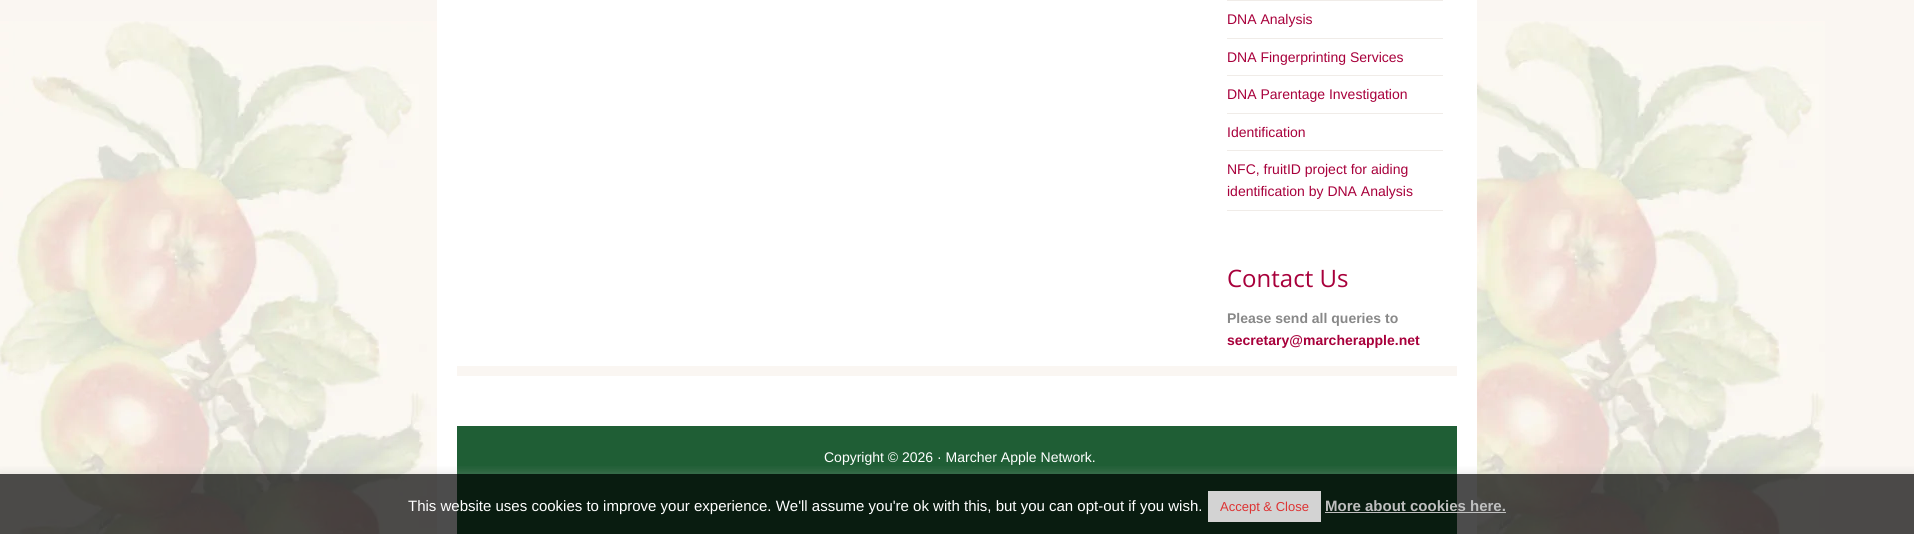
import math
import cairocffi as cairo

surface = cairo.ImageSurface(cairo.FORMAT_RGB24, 1914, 534)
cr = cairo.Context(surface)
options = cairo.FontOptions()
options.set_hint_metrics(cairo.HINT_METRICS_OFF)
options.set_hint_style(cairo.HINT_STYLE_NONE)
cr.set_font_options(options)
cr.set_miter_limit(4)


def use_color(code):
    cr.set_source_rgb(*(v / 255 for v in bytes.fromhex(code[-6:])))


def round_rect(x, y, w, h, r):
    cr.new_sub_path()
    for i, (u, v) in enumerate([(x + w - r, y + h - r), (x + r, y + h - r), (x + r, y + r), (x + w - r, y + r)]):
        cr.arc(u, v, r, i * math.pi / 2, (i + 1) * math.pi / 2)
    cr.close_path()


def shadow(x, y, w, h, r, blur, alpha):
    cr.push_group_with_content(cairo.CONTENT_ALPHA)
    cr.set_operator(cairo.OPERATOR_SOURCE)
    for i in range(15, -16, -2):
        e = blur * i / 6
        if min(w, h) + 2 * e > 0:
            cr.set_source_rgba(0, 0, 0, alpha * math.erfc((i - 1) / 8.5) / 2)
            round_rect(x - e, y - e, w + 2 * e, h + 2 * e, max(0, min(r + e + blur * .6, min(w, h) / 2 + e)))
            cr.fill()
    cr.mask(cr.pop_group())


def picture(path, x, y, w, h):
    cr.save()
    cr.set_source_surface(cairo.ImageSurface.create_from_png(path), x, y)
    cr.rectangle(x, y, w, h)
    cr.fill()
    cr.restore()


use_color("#faf6f2")
cr.paint()
picture("img1.png", 0, 21, 1825, 513)
use_color("#ffffff")
cr.rectangle(457, 0, 1000, 426)
cr.fill()
cr.rectangle(1457, 0, 20, 534)
cr.fill()
cr.rectangle(437, 0, 20, 534)
cr.fill()
use_color("#f0ece8")
cr.rectangle(1227, 0, 216, 1)
cr.fill()
cr.rectangle(1227, 38, 216, 1)
cr.fill()
cr.select_font_face("Liberation Sans")
cr.set_font_size(14)
use_color("#a8003b")
cr.move_to(1227, 24)
cr.show_text("DNA Analysis")
use_color("#f0ece8")
cr.rectangle(1227, 75, 216, 1)
cr.fill()
use_color("#a8003b")
cr.move_to(1227, 62)
cr.show_text("DNA Fingerprinting Services")
use_color("#f0ece8")
cr.rectangle(1227, 113, 216, 1)
cr.fill()
use_color("#a8003b")
cr.move_to(1227, 99)
cr.show_text("DNA Parentage Investigation")
use_color("#f0ece8")
cr.rectangle(1227, 150, 216, 1)
cr.fill()
use_color("#a8003b")
cr.move_to(1227, 137)
cr.show_text("Identification")
use_color("#f0ece8")
cr.rectangle(1227, 210, 216, 1)
cr.fill()
use_color("#a8003b")
cr.move_to(1227, 174)
cr.show_text("NFC, fruitID project for aiding")
cr.move_to(1227, 196)
cr.show_text("identification by DNA Analysis")
cr.select_font_face("Open Sans")
cr.set_font_size(24)
cr.move_to(1227, 287)
cr.show_text("Contact Us")
cr.select_font_face("Liberation Sans", cairo.FONT_SLANT_NORMAL, cairo.FONT_WEIGHT_BOLD)
cr.set_font_size(14)
use_color("#888888")
cr.move_to(1227, 323)
cr.show_text("Please send all queries to")
use_color("#a8003b")
cr.move_to(1227, 345)
cr.show_text("secretary@marcherapple.net")
use_color("#faf6f2")
cr.rectangle(457, 366, 1000, 10)
cr.fill()
use_color("#1f5e35")
cr.rectangle(457, 426, 1000, 108)
cr.fill()
cr.select_font_face("Liberation Sans")
use_color("#ffffff")
cr.move_to(824, 462)
cr.show_text("Copyright © 2026 · Marcher Apple Network.")
cr.save()
cr.rectangle(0, 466, 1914, 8)
cr.clip()
use_color("#acabab")
shadow(0, 473, 1914, 60, 0, 5, 0.3)
cr.restore()
cr.set_source_rgba(0, 0, 0, 0.7)
cr.rectangle(0, 474, 1914, 60)
cr.fill()
cr.set_font_size(15)
use_color("#ffffff")
cr.move_to(408, 511)
cr.show_text("This website uses cookies to improve your experience. We'll assume you're ok with this, but you can opt-out if you wish.")
use_color("#d3d3d3")
cr.rectangle(1208, 491, 113, 31)
cr.fill()
cr.set_font_size(13)
use_color("#dd3333")
cr.move_to(1220, 511)
cr.show_text("Accept & Close")
cr.select_font_face("Liberation Sans", cairo.FONT_SLANT_NORMAL, cairo.FONT_WEIGHT_BOLD)
cr.set_font_size(15)
use_color("#bfbfbf")
cr.move_to(1325, 511)
cr.show_text("More about cookies here.")
cr.rectangle(1325, 512, 181, 1)
cr.fill()
surface.write_to_png("result.png")
